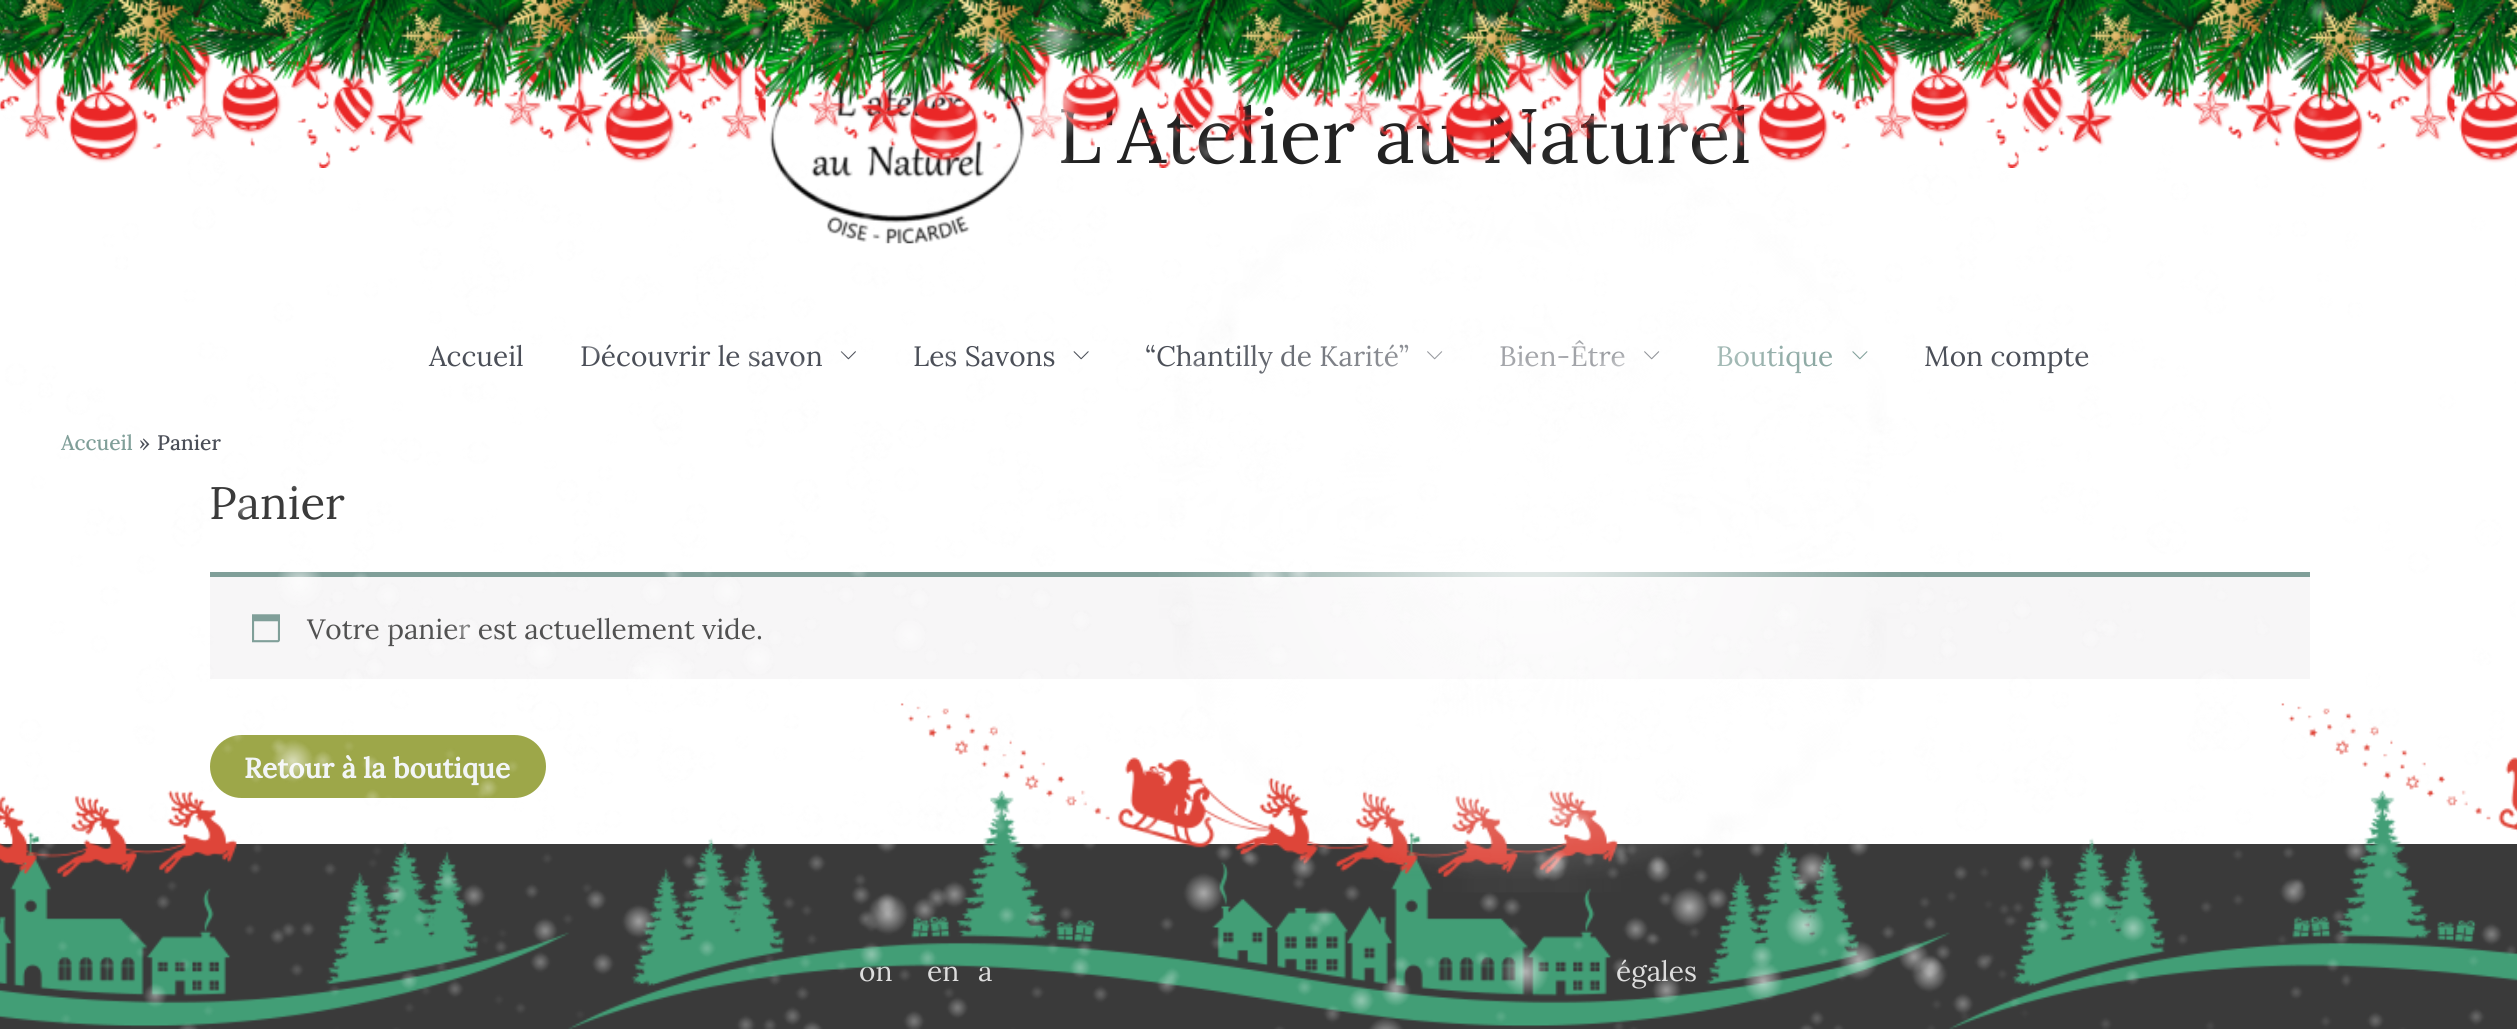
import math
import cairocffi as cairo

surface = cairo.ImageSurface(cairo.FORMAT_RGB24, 2517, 1029)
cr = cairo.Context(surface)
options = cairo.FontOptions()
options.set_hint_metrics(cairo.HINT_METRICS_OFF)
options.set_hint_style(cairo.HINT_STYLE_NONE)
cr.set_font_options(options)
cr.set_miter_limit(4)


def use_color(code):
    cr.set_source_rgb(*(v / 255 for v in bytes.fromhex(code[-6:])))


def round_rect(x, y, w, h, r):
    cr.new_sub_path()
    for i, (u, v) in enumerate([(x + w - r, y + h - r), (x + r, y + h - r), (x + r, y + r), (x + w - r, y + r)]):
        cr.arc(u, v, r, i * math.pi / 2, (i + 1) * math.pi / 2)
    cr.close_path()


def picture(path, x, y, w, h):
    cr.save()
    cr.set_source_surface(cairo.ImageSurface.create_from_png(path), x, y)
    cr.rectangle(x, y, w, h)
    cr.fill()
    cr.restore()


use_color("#ffffff")
cr.paint()
picture("img3.png", 769, 28, 256, 216)
cr.select_font_face("Lora")
cr.set_font_size(77)
use_color("#222222")
cr.move_to(1057, 163)
cr.show_text("L'Atelier au Naturel")
picture("img1.png", 0, 0, 2517, 168)
cr.set_font_size(28)
use_color("#4b4f58")
cr.move_to(429, 366)
cr.show_text("Accueil")
cr.move_to(580, 366)
cr.show_text("Découvrir le savon")
picture("img4.png", 840, 351, 16, 9)
cr.move_to(913, 366)
cr.show_text("Les Savons")
picture("img5.png", 1073, 351, 16, 9)
cr.move_to(1145, 366)
cr.show_text("“Chantilly de Karité”")
picture("img6.png", 1427, 351, 16, 9)
cr.move_to(1499, 366)
cr.show_text("Bien-Être")
picture("img6.png", 1644, 351, 16, 9)
use_color("#809f99")
cr.move_to(1716, 366)
cr.show_text("Boutique")
picture("img7.png", 1852, 351, 16, 9)
use_color("#4b4f58")
cr.move_to(1924, 366)
cr.show_text("Mon compte")
cr.select_font_face("Lora Medium")
cr.set_font_size(21)
use_color("#809f99")
cr.move_to(61, 450)
cr.show_text("Accueil")
use_color("#4b4f58")
cr.move_to(139, 450)
cr.show_text("»")
cr.move_to(157, 450)
cr.show_text("Panier")
cr.select_font_face("Lora")
cr.set_font_size(45.5)
use_color("#3a3a3a")
cr.move_to(209, 519)
cr.show_text("Panier")
use_color("#f7f6f7")
cr.rectangle(210, 577, 2100, 102)
cr.fill()
use_color("#809f99")
cr.rectangle(210, 572, 2100, 5)
cr.fill()
picture("img8.png", 252, 614, 28, 29)
cr.set_font_size(28)
use_color("#515151")
cr.move_to(307, 639)
cr.show_text("Votre panier est actuellement vide.")
use_color("#9da749")
round_rect(210, 735, 336, 63, 31.5)
cr.fill()
cr.select_font_face("Lora", cairo.FONT_SLANT_NORMAL, cairo.FONT_WEIGHT_BOLD)
use_color("#f2f5f7")
cr.move_to(244, 778)
cr.show_text("Retour à la boutique")
use_color("#3a3a3a")
cr.rectangle(0, 844, 2517, 185)
cr.fill()
cr.select_font_face("Lora")
use_color("#dddddd")
cr.move_to(859, 981)
cr.show_text("on")
cr.move_to(927, 981)
cr.show_text("en")
cr.move_to(978, 981)
cr.show_text("a")
cr.move_to(1616, 981)
cr.show_text("égales")
picture("img9.png", 0, 703, 2517, 326)
picture("img2.png", 0, 0, 2516, 1029)
surface.write_to_png("result.png")
